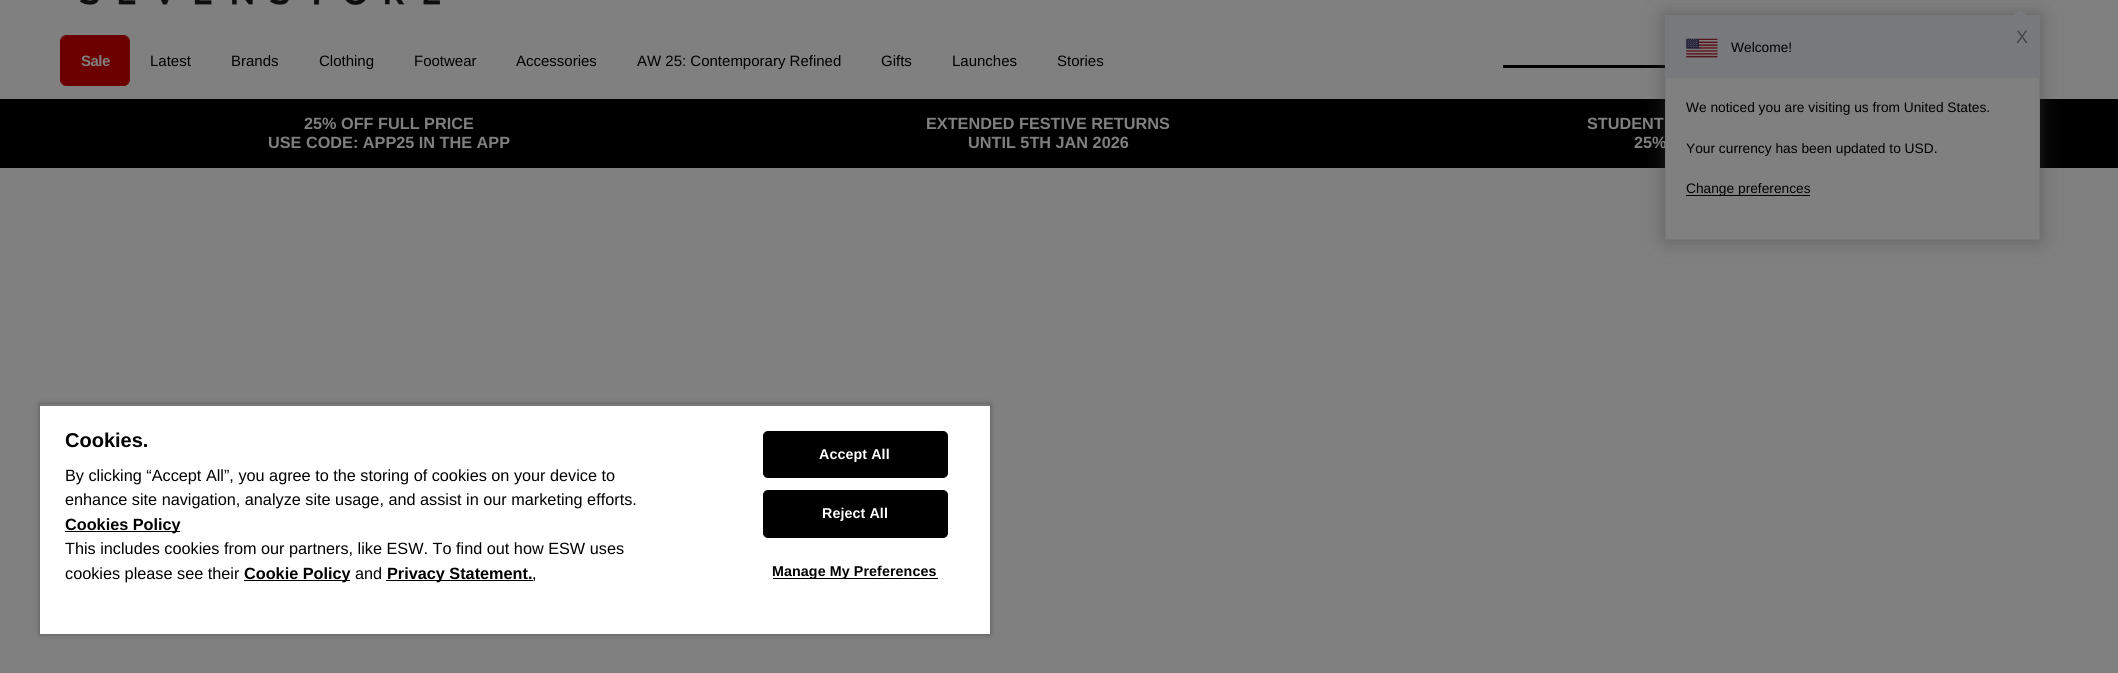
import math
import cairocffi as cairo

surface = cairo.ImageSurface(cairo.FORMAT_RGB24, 2118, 673)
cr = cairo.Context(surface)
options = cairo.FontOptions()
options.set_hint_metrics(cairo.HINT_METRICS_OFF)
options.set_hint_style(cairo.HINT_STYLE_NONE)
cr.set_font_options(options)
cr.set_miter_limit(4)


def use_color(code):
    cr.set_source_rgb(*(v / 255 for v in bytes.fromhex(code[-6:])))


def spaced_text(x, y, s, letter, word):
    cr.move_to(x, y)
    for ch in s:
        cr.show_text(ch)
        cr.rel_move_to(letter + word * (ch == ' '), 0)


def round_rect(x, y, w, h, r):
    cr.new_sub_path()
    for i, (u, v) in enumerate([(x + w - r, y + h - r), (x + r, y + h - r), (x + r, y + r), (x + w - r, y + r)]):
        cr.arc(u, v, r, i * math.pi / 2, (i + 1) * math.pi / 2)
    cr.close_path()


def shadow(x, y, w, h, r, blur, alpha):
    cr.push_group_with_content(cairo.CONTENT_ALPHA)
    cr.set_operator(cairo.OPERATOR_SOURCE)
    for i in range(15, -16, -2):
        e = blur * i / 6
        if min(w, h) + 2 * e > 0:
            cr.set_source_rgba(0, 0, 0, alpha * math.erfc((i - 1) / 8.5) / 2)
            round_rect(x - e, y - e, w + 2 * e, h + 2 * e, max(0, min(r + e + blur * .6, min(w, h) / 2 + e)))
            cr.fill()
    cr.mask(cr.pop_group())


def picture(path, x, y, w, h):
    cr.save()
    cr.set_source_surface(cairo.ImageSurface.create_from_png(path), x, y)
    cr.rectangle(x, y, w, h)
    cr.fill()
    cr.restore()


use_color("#808080")
cr.paint()
use_color("#6c0000")
cr.new_path()
cr.move_to(66, 36)
cr.line_to(124, 36)
cr.curve_to(127, 36, 129, 38, 129, 41)
cr.line_to(129, 80)
cr.curve_to(129, 83, 127, 86, 124, 86)
cr.line_to(66, 86)
cr.curve_to(63, 86, 61, 83, 61, 80)
cr.line_to(61, 41)
cr.curve_to(61, 38, 63, 36, 66, 36)
cr.close_path()
cr.fill()
cr.set_fill_rule(cairo.FILL_RULE_EVEN_ODD)
cr.new_path()
cr.move_to(66, 35)
cr.line_to(124, 35)
cr.curve_to(127, 35, 130, 38, 130, 41)
cr.line_to(130, 80)
cr.curve_to(130, 83, 127, 86, 124, 86)
cr.line_to(66, 86)
cr.curve_to(63, 86, 60, 83, 60, 80)
cr.line_to(60, 41)
cr.curve_to(60, 38, 63, 35, 66, 35)
cr.close_path()
cr.move_to(66, 36)
cr.line_to(124, 36)
cr.curve_to(127, 36, 129, 38, 129, 41)
cr.line_to(129, 80)
cr.curve_to(129, 83, 127, 86, 124, 86)
cr.line_to(66, 86)
cr.curve_to(63, 86, 61, 83, 61, 80)
cr.line_to(61, 41)
cr.curve_to(61, 38, 63, 36, 66, 36)
cr.close_path()
cr.fill()
cr.select_font_face("Liberation Sans", cairo.FONT_SLANT_NORMAL, cairo.FONT_WEIGHT_BOLD)
cr.set_font_size(15)
use_color("#808080")
spaced_text(81, 66, "Sale", -0.5, 0)
cr.select_font_face("Liberation Sans")
use_color("#000000")
cr.move_to(150, 66)
cr.show_text("Latest")
cr.move_to(231, 66)
cr.show_text("Brands")
cr.move_to(319, 66)
cr.show_text("Clothing")
cr.move_to(414, 66)
cr.show_text("Footwear")
cr.move_to(516, 66)
cr.show_text("Accessories")
cr.move_to(637, 66)
cr.show_text("AW 25: Contemporary Refined")
cr.move_to(881, 66)
cr.show_text("Gifts")
cr.move_to(952, 66)
cr.show_text("Launches")
cr.move_to(1057, 66)
cr.show_text("Stories")
cr.rectangle(1503, 65, 162, 3)
cr.fill()
cr.rectangle(0, 99, 2118, 69)
cr.fill()
use_color("#404040")
shadow(1665, 15, 375, 225, 0, 10, 0.5)
use_color("#808080")
cr.rectangle(1666, 78, 373, 161)
cr.fill()
cr.select_font_face("Liberation Sans", cairo.FONT_SLANT_NORMAL, cairo.FONT_WEIGHT_BOLD)
cr.set_font_size(16.25)
cr.move_to(1634, 148)
cr.show_text("25%")
cr.rectangle(1665.5, 15.5, 374, 224)
use_color("#77797c")
cr.set_line_width(1)
cr.stroke()
cr.set_fill_rule(cairo.FILL_RULE_WINDING)
cr.new_path()
cr.move_to(2027.5, 16)
cr.line_to(2012.5, 16)
cr.line_to(2020, 9)
cr.close_path()
cr.fill()
cr.rectangle(1666, 16, 373, 62)
cr.fill()
cr.select_font_face("Liberation Sans")
cr.set_font_size(18)
use_color("#444444")
cr.move_to(2016, 43)
cr.show_text("X")
picture("img1.png", 1686, 38, 32, 20)
cr.set_font_size(13.75)
use_color("#000000")
cr.move_to(1731, 52)
cr.show_text("Welcome!")
cr.move_to(1686, 112)
cr.show_text("We noticed you are visiting us from United States.")
cr.move_to(1686, 153)
cr.show_text("Your currency has been updated to USD.")
cr.rectangle(1686, 195, 124, 1)
cr.fill()
cr.move_to(1686, 193)
cr.show_text("Change preferences")
picture("img2.png", 80, 0, 360, 5)
cr.select_font_face("Liberation Sans", cairo.FONT_SLANT_NORMAL, cairo.FONT_WEIGHT_BOLD)
cr.set_font_size(16.25)
use_color("#808080")
cr.move_to(304, 129)
cr.show_text("25% OFF FULL PRICE")
cr.move_to(268, 148)
cr.show_text("USE CODE: APP25 IN THE APP")
cr.move_to(926, 129)
cr.show_text("EXTENDED FESTIVE RETURNS")
cr.move_to(968, 148)
cr.show_text("UNTIL 5TH JAN 2026")
cr.move_to(1587, 129)
cr.show_text("STUDENT")
cr.save()
cr.set_fill_rule(cairo.FILL_RULE_EVEN_ODD)
cr.new_path()
cr.move_to(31, 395)
cr.line_to(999, 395)
cr.line_to(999, 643)
cr.line_to(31, 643)
cr.close_path()
cr.move_to(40, 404)
cr.line_to(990, 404)
cr.line_to(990, 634)
cr.line_to(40, 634)
cr.close_path()
cr.clip()
use_color("#000000")
shadow(40, 404, 950, 230, 0, 2.5, 0.35)
cr.restore()
cr.save()
cr.rectangle(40, 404, 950, 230)
cr.clip()
use_color("#000000")
shadow(40, 406, 950, 228, 0, 2.5, 0.2)
cr.restore()
use_color("#ffffff")
cr.rectangle(40, 406, 950, 228)
cr.fill()
cr.set_font_size(20)
use_color("#000000")
cr.move_to(65, 447)
cr.show_text("Cookies.")
cr.select_font_face("Liberation Sans")
cr.set_font_size(16.25)
cr.move_to(65, 481)
cr.show_text("By clicking “Accept All”, you agree to the storing of cookies on your device to")
cr.move_to(65, 505)
cr.show_text("enhance site navigation, analyze site usage, and assist in our marketing efforts.")
cr.rectangle(65, 531, 115, 1)
cr.fill()
cr.select_font_face("Liberation Sans", cairo.FONT_SLANT_NORMAL, cairo.FONT_WEIGHT_BOLD)
cr.move_to(65, 530)
cr.show_text("Cookies Policy")
cr.select_font_face("Liberation Sans")
cr.move_to(65, 554)
cr.show_text("This includes cookies from our partners, like ESW. To find out how ESW uses")
cr.move_to(65, 579)
cr.show_text("cookies please see their")
cr.rectangle(244, 580, 106, 1)
cr.fill()
cr.select_font_face("Liberation Sans", cairo.FONT_SLANT_NORMAL, cairo.FONT_WEIGHT_BOLD)
cr.move_to(244, 579)
cr.show_text("Cookie Policy")
cr.select_font_face("Liberation Sans")
cr.move_to(355, 579)
cr.show_text("and")
cr.rectangle(386, 580, 147, 1)
cr.fill()
cr.select_font_face("Liberation Sans", cairo.FONT_SLANT_NORMAL, cairo.FONT_WEIGHT_BOLD)
cr.move_to(387, 579)
cr.show_text("Privacy Statement.")
cr.select_font_face("Liberation Sans")
cr.move_to(532, 579)
cr.show_text(",")
round_rect(763.5, 431.5, 184, 46, 4.5)
cr.fill_preserve()
cr.stroke()
cr.select_font_face("Liberation Sans", cairo.FONT_SLANT_NORMAL, cairo.FONT_WEIGHT_BOLD)
cr.set_font_size(14.25)
use_color("#ffffff")
spaced_text(819, 459, "Accept All", 0.1, 0)
use_color("#000000")
round_rect(763.5, 490.5, 184, 47, 4.5)
cr.fill_preserve()
cr.stroke()
use_color("#ffffff")
spaced_text(822, 518, "Reject All", 0.1, 0)
use_color("#000000")
cr.rectangle(773, 578, 165, 1)
cr.fill()
spaced_text(772, 576, "Manage My Preferences", 0.1, 0)
surface.write_to_png("result.png")
